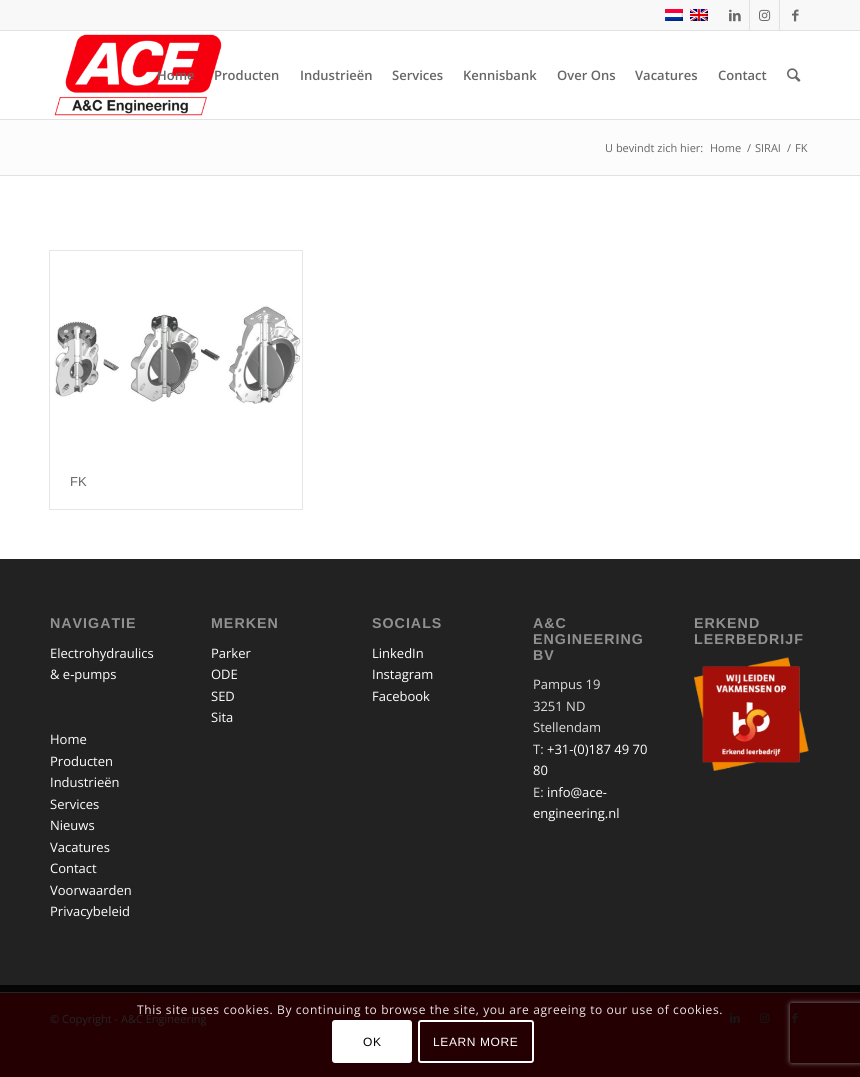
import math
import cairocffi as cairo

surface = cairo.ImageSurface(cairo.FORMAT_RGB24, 860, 1077)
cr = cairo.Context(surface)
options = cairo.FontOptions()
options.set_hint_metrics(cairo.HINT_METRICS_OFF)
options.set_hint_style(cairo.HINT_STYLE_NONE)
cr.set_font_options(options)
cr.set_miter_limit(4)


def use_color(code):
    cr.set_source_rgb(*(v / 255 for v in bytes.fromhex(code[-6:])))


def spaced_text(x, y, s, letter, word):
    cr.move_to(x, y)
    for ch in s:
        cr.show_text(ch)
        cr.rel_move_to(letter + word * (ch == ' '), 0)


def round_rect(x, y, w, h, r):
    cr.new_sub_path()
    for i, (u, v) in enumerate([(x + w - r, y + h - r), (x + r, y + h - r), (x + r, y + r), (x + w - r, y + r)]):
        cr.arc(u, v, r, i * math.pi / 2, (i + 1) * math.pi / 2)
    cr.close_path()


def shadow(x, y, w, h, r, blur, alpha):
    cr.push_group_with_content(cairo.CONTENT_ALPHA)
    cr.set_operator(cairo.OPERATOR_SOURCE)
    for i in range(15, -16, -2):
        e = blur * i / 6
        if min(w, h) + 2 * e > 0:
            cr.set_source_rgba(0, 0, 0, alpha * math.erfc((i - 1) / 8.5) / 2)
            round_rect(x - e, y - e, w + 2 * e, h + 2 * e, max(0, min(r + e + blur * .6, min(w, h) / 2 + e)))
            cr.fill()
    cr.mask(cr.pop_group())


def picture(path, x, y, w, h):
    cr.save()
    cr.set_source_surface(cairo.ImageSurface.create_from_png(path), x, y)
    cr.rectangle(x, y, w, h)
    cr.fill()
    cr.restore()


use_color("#250002")
cr.paint()
use_color("#ffffff")
cr.rectangle(0, 176, 860, 383)
cr.fill()
use_color("#f8f8f8")
cr.rectangle(0, 0, 860, 30)
cr.fill()
use_color("#e1e1e1")
cr.rectangle(0, 30, 860, 1)
cr.fill()
picture("img1.png", 665, 9, 18, 12)
picture("img2.png", 690, 9, 18, 12)
cr.rectangle(749, 0, 1, 30)
cr.fill()
picture("img3.png", 729, 9, 12, 13)
cr.rectangle(779, 0, 1, 30)
cr.fill()
picture("img4.png", 759, 9, 12, 12)
picture("img5.png", 792, 9, 7, 13)
use_color("#ffffff")
cr.rectangle(0, 31, 860, 88)
cr.fill()
use_color("#e1e1e1")
cr.rectangle(0, 119, 860, 1)
cr.fill()
picture("img6.png", 54, 34, 168, 82)
cr.select_font_face("Open Sans SemiBold")
cr.set_font_size(13)
use_color("#666666")
cr.move_to(157, 80)
cr.show_text("Home")
cr.move_to(214, 80)
cr.show_text("Producten")
cr.move_to(300, 80)
cr.show_text("Industrieën")
cr.move_to(392, 80)
cr.show_text("Services")
cr.move_to(463, 80)
cr.show_text("Kennisbank")
cr.move_to(557, 80)
cr.show_text("Over Ons")
cr.move_to(635, 80)
cr.show_text("Vacatures")
cr.move_to(718, 80)
cr.show_text("Contact")
picture("img7.png", 787, 68, 14, 14)
use_color("#fcfcfc")
cr.rectangle(0, 120, 860, 55)
cr.fill()
cr.select_font_face("Open Sans")
cr.set_font_size(11)
use_color("#666666")
cr.move_to(605, 152)
cr.show_text("U bevindt zich hier:")
cr.move_to(710, 152)
cr.show_text("Home")
cr.move_to(747, 152)
cr.show_text("/")
cr.move_to(755, 152)
cr.show_text("SIRAI")
cr.move_to(787, 152)
cr.show_text("/")
cr.move_to(795, 152)
cr.show_text("FK")
use_color("#e1e1e1")
cr.rectangle(0, 175, 860, 1)
cr.fill()
cr.rectangle(49.5, 250.5, 253, 259)
use_color("#e6e6e6")
cr.set_line_width(1)
cr.stroke()
picture("img8.png", 54, 305, 248, 99)
cr.select_font_face("Liberation Sans")
cr.set_font_size(13)
use_color("#666666")
cr.move_to(70, 486)
cr.show_text("FK")
use_color("#222222")
cr.rectangle(0, 559, 860, 426)
cr.fill()
use_color("#050505")
cr.rectangle(0, 985, 860, 7)
cr.fill()
cr.select_font_face("Liberation Sans", cairo.FONT_SLANT_NORMAL, cairo.FONT_WEIGHT_BOLD)
cr.set_font_size(14.25)
use_color("#919191")
spaced_text(50, 628, "NAVIGATIE", 1, 0)
cr.select_font_face("Open Sans")
cr.set_font_size(13)
use_color("#ffffff")
cr.move_to(50, 658)
cr.show_text("Electrohydraulics")
cr.move_to(50, 679)
cr.show_text("& e-pumps")
cr.move_to(50, 744)
cr.show_text("Home")
cr.move_to(50, 766)
cr.show_text("Producten")
cr.move_to(50, 787)
cr.show_text("Industrieën")
cr.move_to(50, 809)
cr.show_text("Services")
cr.move_to(50, 830)
cr.show_text("Nieuws")
cr.move_to(50, 852)
cr.show_text("Vacatures")
cr.move_to(50, 873)
cr.show_text("Contact")
cr.move_to(50, 895)
cr.show_text("Voorwaarden")
cr.move_to(50, 916)
cr.show_text("Privacybeleid")
cr.select_font_face("Liberation Sans", cairo.FONT_SLANT_NORMAL, cairo.FONT_WEIGHT_BOLD)
cr.set_font_size(14.25)
use_color("#919191")
spaced_text(211, 628, "MERKEN", 1, 0)
cr.select_font_face("Open Sans")
cr.set_font_size(13)
use_color("#ffffff")
cr.move_to(211, 658)
cr.show_text("Parker")
cr.move_to(211, 679)
cr.show_text("ODE")
cr.move_to(211, 701)
cr.show_text("SED")
cr.move_to(211, 722)
cr.show_text("Sita")
cr.select_font_face("Liberation Sans", cairo.FONT_SLANT_NORMAL, cairo.FONT_WEIGHT_BOLD)
cr.set_font_size(14.25)
use_color("#919191")
spaced_text(372, 628, "SOCIALS", 1, 0)
cr.select_font_face("Open Sans")
cr.set_font_size(13)
use_color("#ffffff")
cr.move_to(372, 658)
cr.show_text("LinkedIn")
cr.move_to(372, 679)
cr.show_text("Instagram")
cr.move_to(372, 701)
cr.show_text("Facebook")
cr.select_font_face("Liberation Sans", cairo.FONT_SLANT_NORMAL, cairo.FONT_WEIGHT_BOLD)
cr.set_font_size(14.25)
use_color("#919191")
spaced_text(533, 628, "A&C", 1, 0)
spaced_text(533, 644, "ENGINEERING", 1, 0)
spaced_text(533, 660, "BV", 1, 0)
cr.select_font_face("Open Sans")
cr.set_font_size(13)
use_color("#dddddd")
cr.move_to(533, 689)
cr.show_text("Pampus 19")
cr.move_to(533, 711)
cr.show_text("3251 ND")
cr.move_to(533, 732)
cr.show_text("Stellendam")
cr.move_to(533, 754)
cr.show_text("T:")
use_color("#ffffff")
cr.move_to(547, 754)
cr.show_text("+31-(0)187 49 70")
cr.move_to(533, 775)
cr.show_text("80")
use_color("#dddddd")
cr.move_to(533, 797)
cr.show_text("E:")
use_color("#ffffff")
cr.move_to(547, 797)
cr.show_text("info@ace-")
cr.move_to(533, 818)
cr.show_text("engineering.nl")
cr.select_font_face("Liberation Sans", cairo.FONT_SLANT_NORMAL, cairo.FONT_WEIGHT_BOLD)
cr.set_font_size(14.25)
use_color("#919191")
spaced_text(694, 628, "ERKEND", 1, 0)
spaced_text(694, 644, "LEERBEDRIJF", 1, 0)
picture("img9.png", 694, 657, 115, 114)
use_color("#262626")
cr.rectangle(0, 992, 860, 1)
cr.fill()
cr.select_font_face("Open Sans")
cr.set_font_size(11)
use_color("#242424")
cr.move_to(50, 1023)
cr.show_text("© Copyright - A&C Engineering")
picture("img10.png", 730, 1013, 10, 10)
picture("img11.png", 760, 1013, 10, 10)
picture("img12.png", 792, 1013, 6, 11)
cr.save()
cr.set_fill_rule(cairo.FILL_RULE_EVEN_ODD)
cr.new_path()
cr.move_to(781, 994)
cr.line_to(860, 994)
cr.line_to(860, 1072)
cr.line_to(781, 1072)
cr.close_path()
cr.move_to(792, 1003)
cr.line_to(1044, 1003)
cr.curve_to(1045, 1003, 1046, 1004, 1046, 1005)
cr.line_to(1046, 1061)
cr.curve_to(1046, 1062, 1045, 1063, 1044, 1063)
cr.line_to(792, 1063)
cr.curve_to(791, 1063, 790, 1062, 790, 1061)
cr.line_to(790, 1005)
cr.curve_to(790, 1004, 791, 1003, 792, 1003)
cr.close_path()
cr.clip()
use_color("#808080")
shadow(790, 1003, 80, 60, 2, 2.5, 1)
cr.restore()
cr.set_font_size(12)
use_color("#e9e6e6")
spaced_text(137, 1014, "This site uses cookies. By continuing to browse the site, you are agreeing to our use of cookies.", 0.6, 0)
use_color("#ffffff")
round_rect(332, 1020, 80, 43, 3)
cr.fill()
cr.select_font_face("Liberation Sans")
use_color("#000000")
spaced_text(363, 1046, "OK", 0.6, 0)
round_rect(419, 1021, 114, 41, 2)
use_color("#ffffff")
cr.set_line_width(2)
cr.stroke()
spaced_text(433, 1046, "LEARN MORE", 0.6, 0)
surface.write_to_png("result.png")
